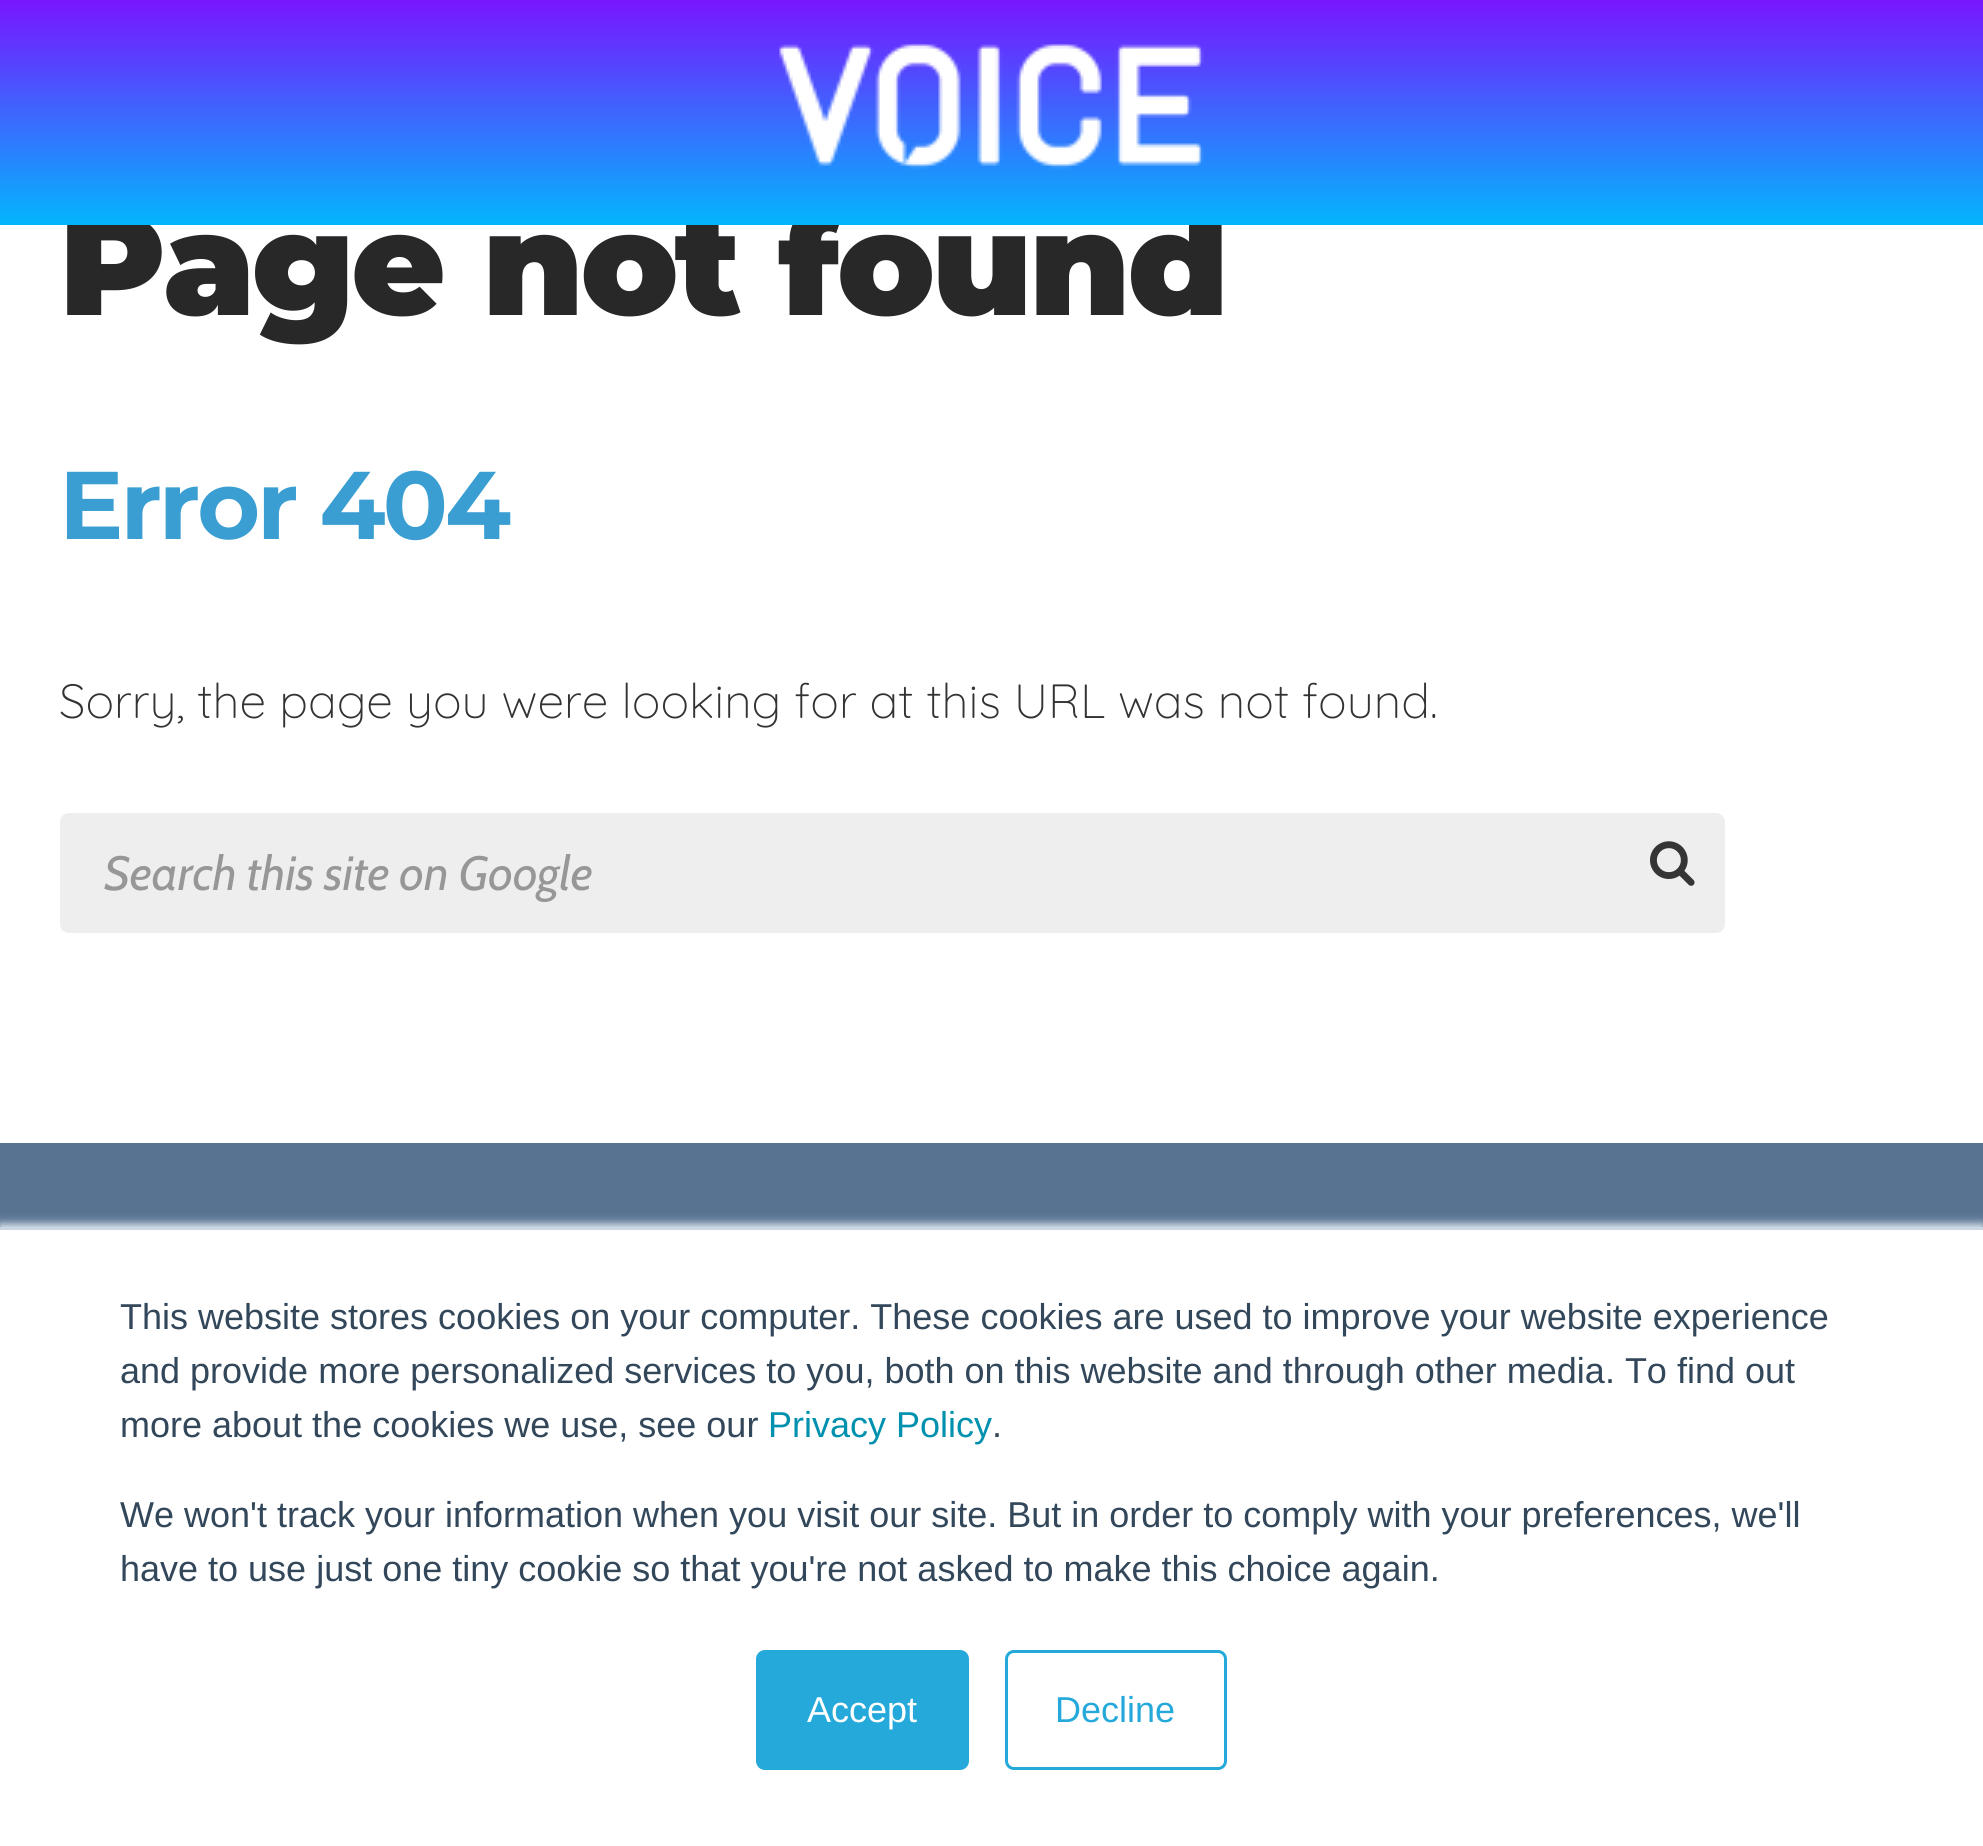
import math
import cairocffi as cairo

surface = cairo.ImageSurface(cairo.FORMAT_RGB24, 1983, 1846)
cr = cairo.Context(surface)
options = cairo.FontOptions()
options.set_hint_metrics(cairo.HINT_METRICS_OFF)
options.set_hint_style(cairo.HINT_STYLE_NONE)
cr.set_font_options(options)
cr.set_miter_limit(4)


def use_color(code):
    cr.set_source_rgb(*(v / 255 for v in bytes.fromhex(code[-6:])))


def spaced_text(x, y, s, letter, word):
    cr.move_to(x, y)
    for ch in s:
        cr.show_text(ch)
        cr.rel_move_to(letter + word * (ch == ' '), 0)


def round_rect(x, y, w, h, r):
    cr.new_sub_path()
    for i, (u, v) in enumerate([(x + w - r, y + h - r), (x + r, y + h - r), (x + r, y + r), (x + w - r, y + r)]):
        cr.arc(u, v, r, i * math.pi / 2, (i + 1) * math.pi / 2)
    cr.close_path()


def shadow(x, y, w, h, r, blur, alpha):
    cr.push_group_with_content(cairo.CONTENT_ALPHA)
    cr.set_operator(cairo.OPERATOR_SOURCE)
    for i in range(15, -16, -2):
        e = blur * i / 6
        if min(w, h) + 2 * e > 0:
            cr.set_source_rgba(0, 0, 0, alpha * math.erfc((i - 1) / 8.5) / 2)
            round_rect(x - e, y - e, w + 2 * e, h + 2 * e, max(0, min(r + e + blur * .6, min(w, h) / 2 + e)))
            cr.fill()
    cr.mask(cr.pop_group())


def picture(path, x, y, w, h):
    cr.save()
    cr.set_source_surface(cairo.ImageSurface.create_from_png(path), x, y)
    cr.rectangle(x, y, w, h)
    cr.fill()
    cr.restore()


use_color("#587291")
cr.paint()
use_color("#ffffff")
cr.rectangle(0, 225, 1983, 918)
cr.fill()
cr.select_font_face("Montserrat Black")
cr.set_font_size(144)
use_color("#282828")
spaced_text(59, 315, "Page not found", -3, 0)
gradient = cairo.LinearGradient(992, 0, 992, 225)
gradient.add_color_stop_rgba(0, 0.471, 0.086, 1, 1)
gradient.add_color_stop_rgba(1, 0.012, 0.71, 0.992, 1)
cr.set_source(gradient)
cr.rectangle(0, 0, 1983, 225)
cr.fill()
picture("img1.png", 779, 43, 425, 126)
cr.select_font_face("Montserrat", cairo.FONT_SLANT_NORMAL, cairo.FONT_WEIGHT_BOLD)
cr.set_font_size(96)
use_color("#3a9ed2")
spaced_text(59, 539, "Error 404", -3, 0)
cr.select_font_face("Quicksand Light")
cr.set_font_size(48)
use_color("#333333")
cr.move_to(59, 718)
cr.show_text("Sorry, the page you were looking for at this URL was not found.")
use_color("#eeeeee")
round_rect(60, 813, 1665, 120, 9)
cr.fill()
cr.select_font_face("Cabin", cairo.FONT_SLANT_ITALIC)
use_color("#979797")
cr.move_to(104, 890)
cr.show_text("Search this site on Google")
picture("img2.png", 1650, 841, 45, 45)
use_color("#eaf0f6")
shadow(0, 1224, 1983, 621, 0, 4.5, 1)
use_color("#ffffff")
cr.rectangle(0, 1230, 1983, 616)
cr.fill()
use_color("#cbd6e2")
cr.rectangle(0, 1227, 1983, 3)
cr.fill()
cr.select_font_face("Liberation Sans")
cr.set_font_size(36)
use_color("#33475b")
cr.move_to(120, 1329)
cr.show_text("This website stores cookies on your computer. These cookies are used to improve your website experience")
cr.move_to(120, 1383)
cr.show_text("and provide more personalized services to you, both on this website and through other media. To find out")
cr.move_to(120, 1437)
cr.show_text("more about the cookies we use, see our")
use_color("#0091ae")
cr.move_to(768, 1437)
cr.show_text("Privacy Policy")
use_color("#33475b")
cr.move_to(992, 1437)
cr.show_text(".")
cr.move_to(120, 1527)
cr.show_text("We won't track your information when you visit our site. But in order to comply with your preferences, we'll")
cr.move_to(120, 1581)
cr.show_text("have to use just one tiny cookie so that you're not asked to make this choice again.")
use_color("#24a9da")
round_rect(757.5, 1651.5, 210, 117, 7.5)
cr.fill_preserve()
cr.set_line_width(3)
cr.stroke()
use_color("#ffffff")
cr.move_to(807, 1722)
cr.show_text("Accept")
round_rect(1006.5, 1651.5, 219, 117, 7.5)
use_color("#24a9da")
cr.stroke()
cr.move_to(1055, 1722)
cr.show_text("Decline")
surface.write_to_png("result.png")
